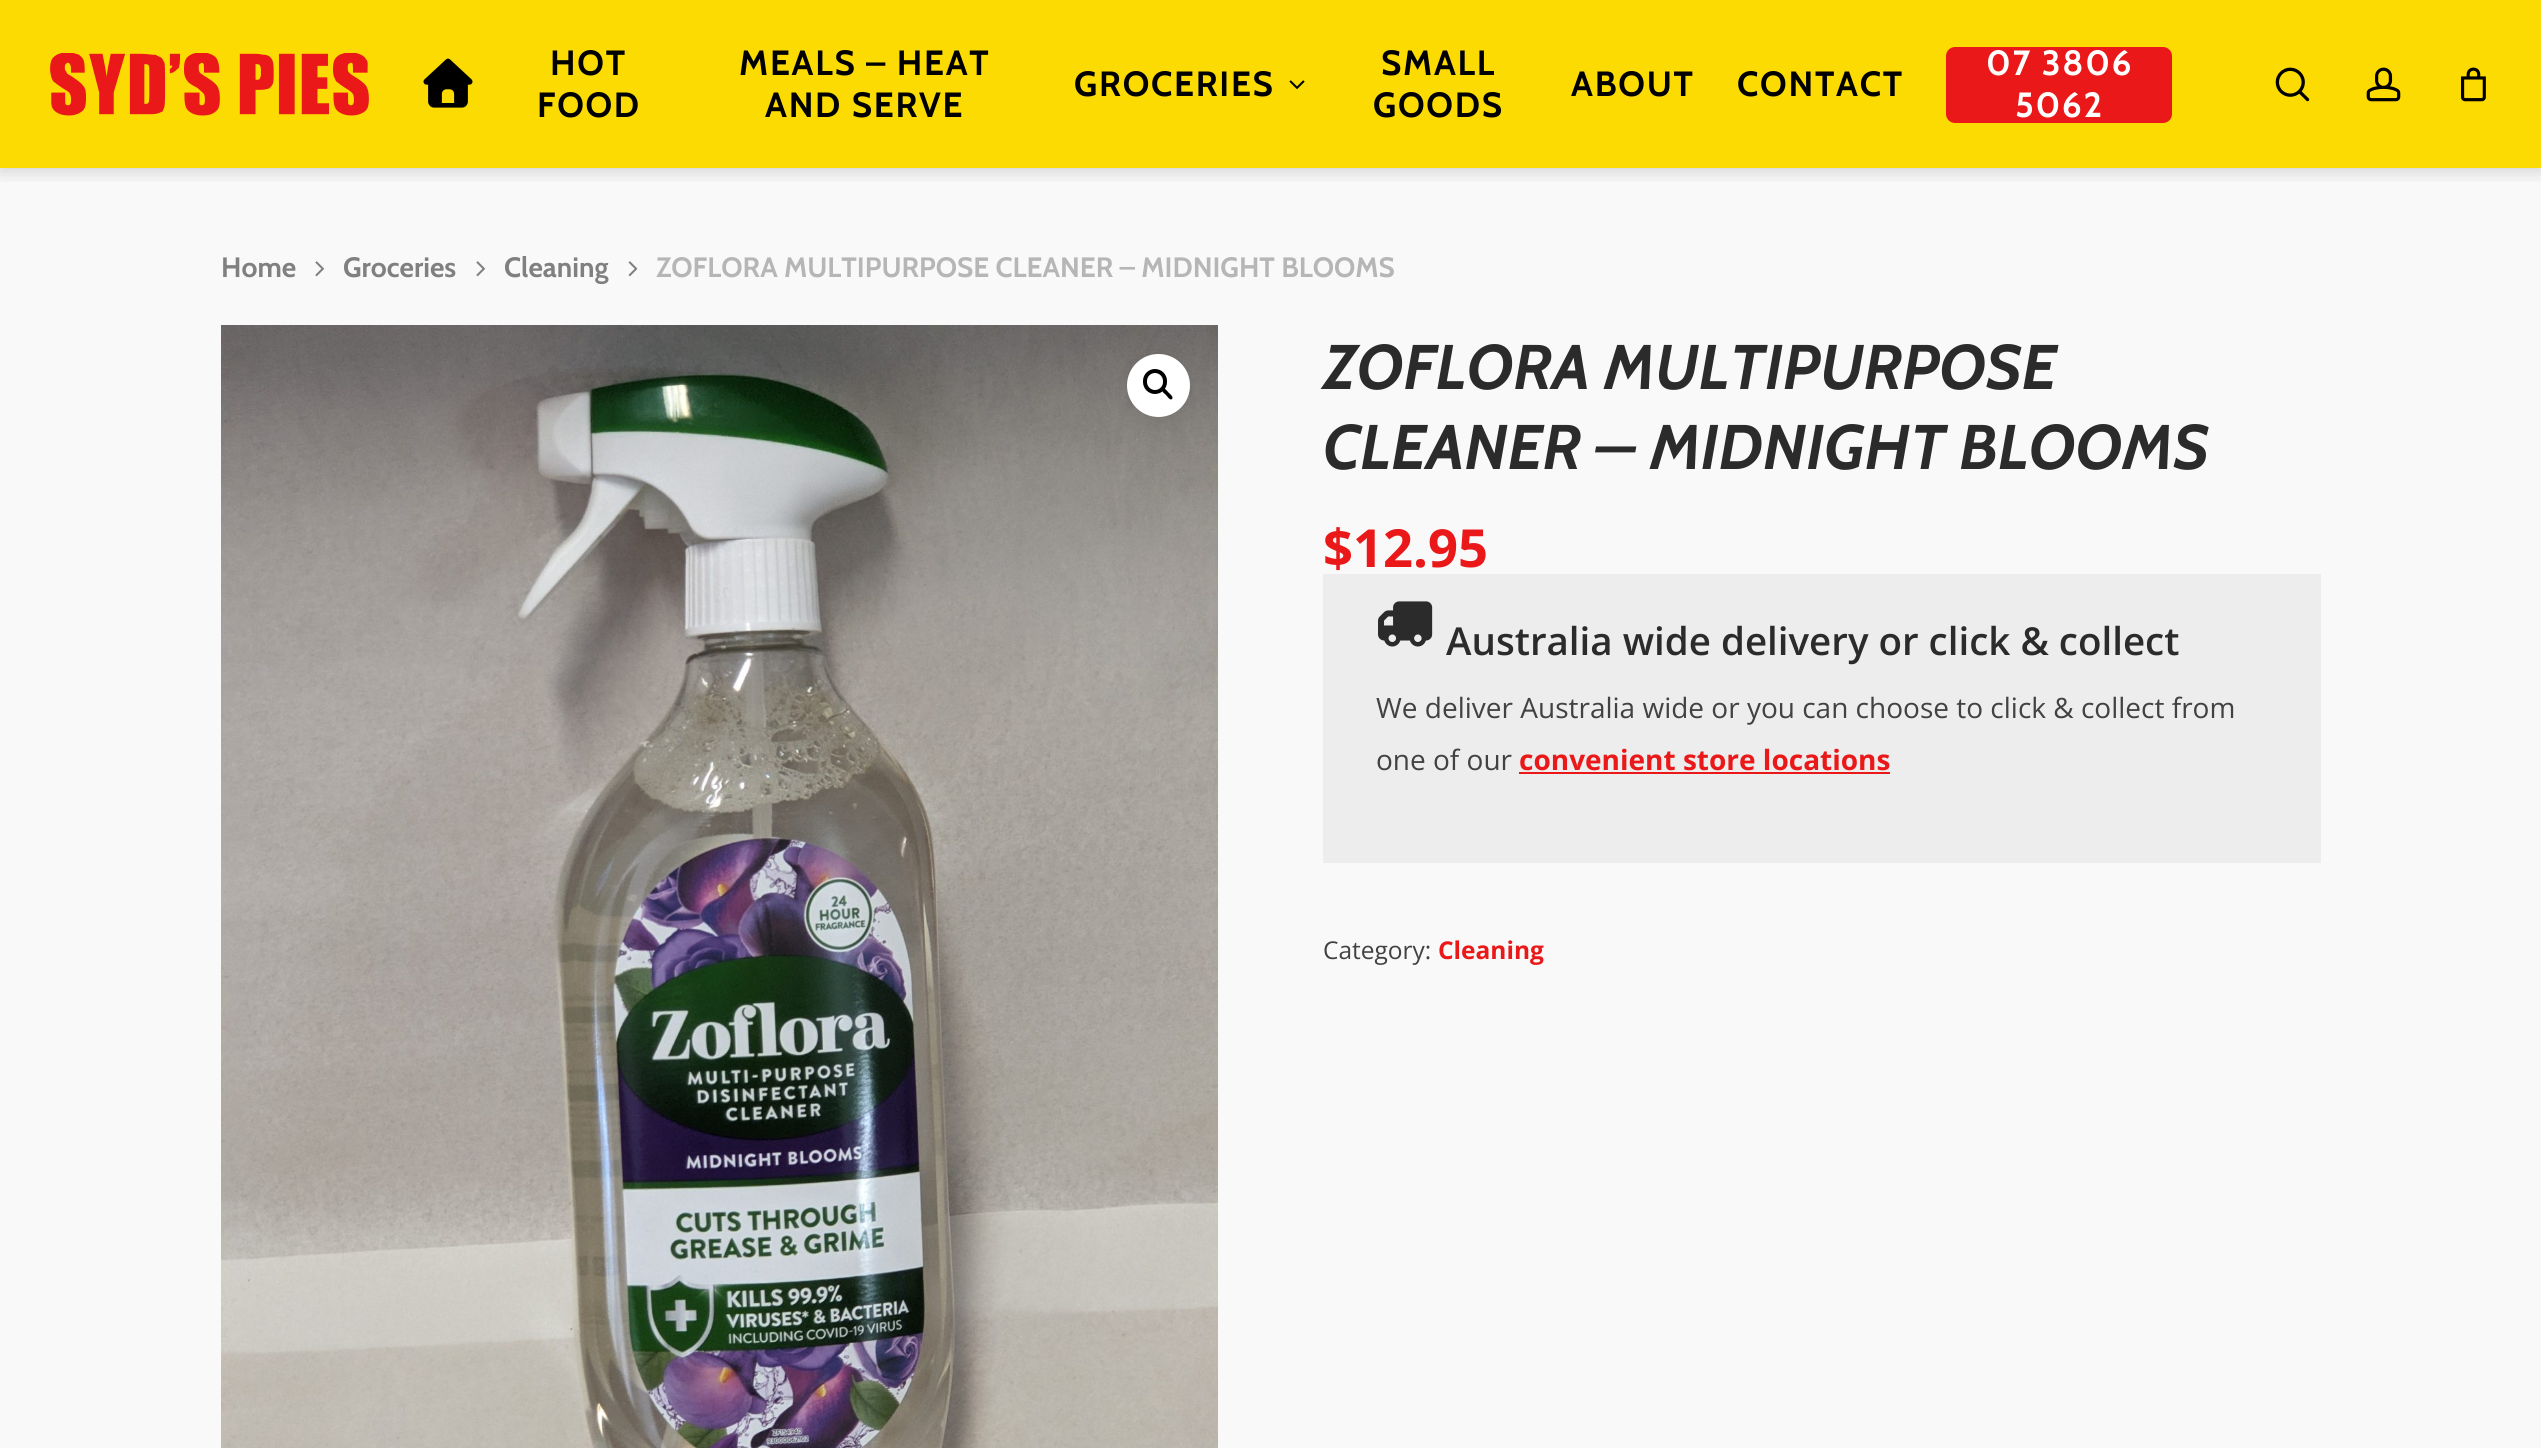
import math
import cairocffi as cairo

surface = cairo.ImageSurface(cairo.FORMAT_RGB24, 2541, 1448)
cr = cairo.Context(surface)
options = cairo.FontOptions()
options.set_hint_metrics(cairo.HINT_METRICS_OFF)
options.set_hint_style(cairo.HINT_STYLE_NONE)
cr.set_font_options(options)
cr.set_miter_limit(4)


def use_color(code):
    cr.set_source_rgb(*(v / 255 for v in bytes.fromhex(code[-6:])))


def spaced_text(x, y, s, letter, word):
    cr.move_to(x, y)
    for ch in s:
        cr.show_text(ch)
        cr.rel_move_to(letter + word * (ch == ' '), 0)


def round_rect(x, y, w, h, r):
    cr.new_sub_path()
    for i, (u, v) in enumerate([(x + w - r, y + h - r), (x + r, y + h - r), (x + r, y + r), (x + w - r, y + r)]):
        cr.arc(u, v, r, i * math.pi / 2, (i + 1) * math.pi / 2)
    cr.close_path()


def shadow(x, y, w, h, r, blur, alpha):
    cr.push_group_with_content(cairo.CONTENT_ALPHA)
    cr.set_operator(cairo.OPERATOR_SOURCE)
    for i in range(15, -16, -2):
        e = blur * i / 6
        if min(w, h) + 2 * e > 0:
            cr.set_source_rgba(0, 0, 0, alpha * math.erfc((i - 1) / 8.5) / 2)
            round_rect(x - e, y - e, w + 2 * e, h + 2 * e, max(0, min(r + e + blur * .6, min(w, h) / 2 + e)))
            cr.fill()
    cr.mask(cr.pop_group())


def picture(path, x, y, w, h):
    cr.save()
    cr.set_source_surface(cairo.ImageSurface.create_from_png(path), x, y)
    cr.rectangle(x, y, w, h)
    cr.fill()
    cr.restore()


use_color("#f9f9f9")
cr.paint()
use_color("#fcdb03")
cr.rectangle(0, 0, 2541, 168)
cr.fill()
cr.save()
cr.rectangle(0, 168, 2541, 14)
cr.clip()
use_color("#000000")
shadow(0, 0, 2541, 168, 0, 10.5, 0.22)
cr.restore()
picture("img1.png", 50, 53, 319, 63)
picture("img2.png", 423, 58, 50, 50)
cr.select_font_face("Cabin", cairo.FONT_SLANT_NORMAL, cairo.FONT_WEIGHT_BOLD)
cr.set_font_size(35)
use_color("#000000")
spaced_text(550, 75, "HOT", 1.75, 0)
spaced_text(537, 117, "FOOD", 1.75, 0)
spaced_text(739, 75, "MEALS – HEAT", 1.75, 0)
spaced_text(765, 117, "AND SERVE", 1.75, 0)
spaced_text(1074, 96, "GROCERIES", 1.75, 0)
picture("img3.png", 1289, 80, 16, 9)
spaced_text(1381, 75, "SMALL", 1.75, 0)
spaced_text(1373, 117, "GOODS", 1.75, 0)
spaced_text(1571, 96, "ABOUT", 1.75, 0)
spaced_text(1737, 96, "CONTACT", 1.75, 0)
use_color("#ea1818")
round_rect(1946, 47, 226, 76, 9)
cr.fill()
use_color("#ffffff")
spaced_text(1986, 75, "07 3806", 1.75, 0)
spaced_text(2015, 117, "5062", 1.75, 0)
picture("img4.png", 2275, 67, 35, 35)
picture("img5.png", 2366, 67, 35, 35)
picture("img6.png", 2461, 67, 25, 35)
cr.set_font_size(28)
use_color("#808080")
cr.move_to(221, 277)
cr.show_text("Home")
picture("img7.png", 315, 261, 9, 16)
cr.move_to(343, 277)
cr.show_text("Groceries")
picture("img7.png", 476, 261, 9, 16)
cr.move_to(504, 277)
cr.show_text("Cleaning")
picture("img8.png", 628, 261, 10, 16)
use_color("#b6b6b6")
cr.move_to(656, 277)
cr.show_text("ZOFLORA MULTIPURPOSE CLEANER – MIDNIGHT BLOOMS")
picture("img9.png", 221, 325, 997, 1123)
use_color("#000000")
shadow(1127, 357, 63, 63, 31.5, 10.5, 0.08)
use_color("#ffffff")
cr.arc(1158.5, 385.5, 31.5, 0, 2 * math.pi)
cr.fill()
round_rect(1145, 371, 20, 21, 10)
use_color("#000000")
cr.set_line_width(4)
cr.stroke()
cr.new_path()
cr.move_to(1162.5, 389)
cr.curve_to(1164.5, 387, 1167.5, 391.5, 1168.5, 392.5)
cr.curve_to(1169.5, 393.5, 1174, 397, 1172, 399)
cr.curve_to(1170, 401, 1167, 396, 1166, 395)
cr.curve_to(1165, 394, 1160.5, 391, 1162.5, 389)
cr.close_path()
cr.fill()
cr.select_font_face("Cabin", cairo.FONT_SLANT_ITALIC, cairo.FONT_WEIGHT_BOLD)
cr.set_font_size(63)
use_color("#2b2b2b")
cr.move_to(1323, 389)
cr.show_text("ZOFLORA MULTIPURPOSE")
cr.move_to(1323, 469)
cr.show_text("CLEANER – MIDNIGHT BLOOMS")
cr.select_font_face("Open Sans", cairo.FONT_SLANT_NORMAL, cairo.FONT_WEIGHT_BOLD)
cr.set_font_size(52.5)
use_color("#ea1818")
cr.move_to(1323, 567)
cr.show_text("$12.95")
use_color("#ededed")
cr.rectangle(1323, 574, 998, 289)
cr.fill()
picture("img10.png", 1378, 601, 55, 46)
cr.select_font_face("Open Sans SemiBold")
cr.set_font_size(38.5)
use_color("#2b2b2b")
cr.move_to(1446, 655)
cr.show_text("Australia wide delivery or click & collect")
cr.select_font_face("Open Sans")
cr.set_font_size(28)
use_color("#424242")
cr.move_to(1376, 718)
cr.show_text("We deliver Australia wide or you can choose to click & collect from")
cr.move_to(1376, 770)
cr.show_text("one of our")
cr.select_font_face("Open Sans", cairo.FONT_SLANT_NORMAL, cairo.FONT_WEIGHT_BOLD)
use_color("#ea1818")
cr.move_to(1519, 770)
cr.show_text("convenient store locations")
cr.rectangle(1519, 772, 371, 2)
cr.fill()
cr.select_font_face("Open Sans")
cr.set_font_size(24.5)
use_color("#424242")
cr.move_to(1323, 959)
cr.show_text("Category:")
cr.select_font_face("Open Sans", cairo.FONT_SLANT_NORMAL, cairo.FONT_WEIGHT_BOLD)
use_color("#ea1818")
cr.move_to(1438, 959)
cr.show_text("Cleaning")
surface.write_to_png("result.png")
